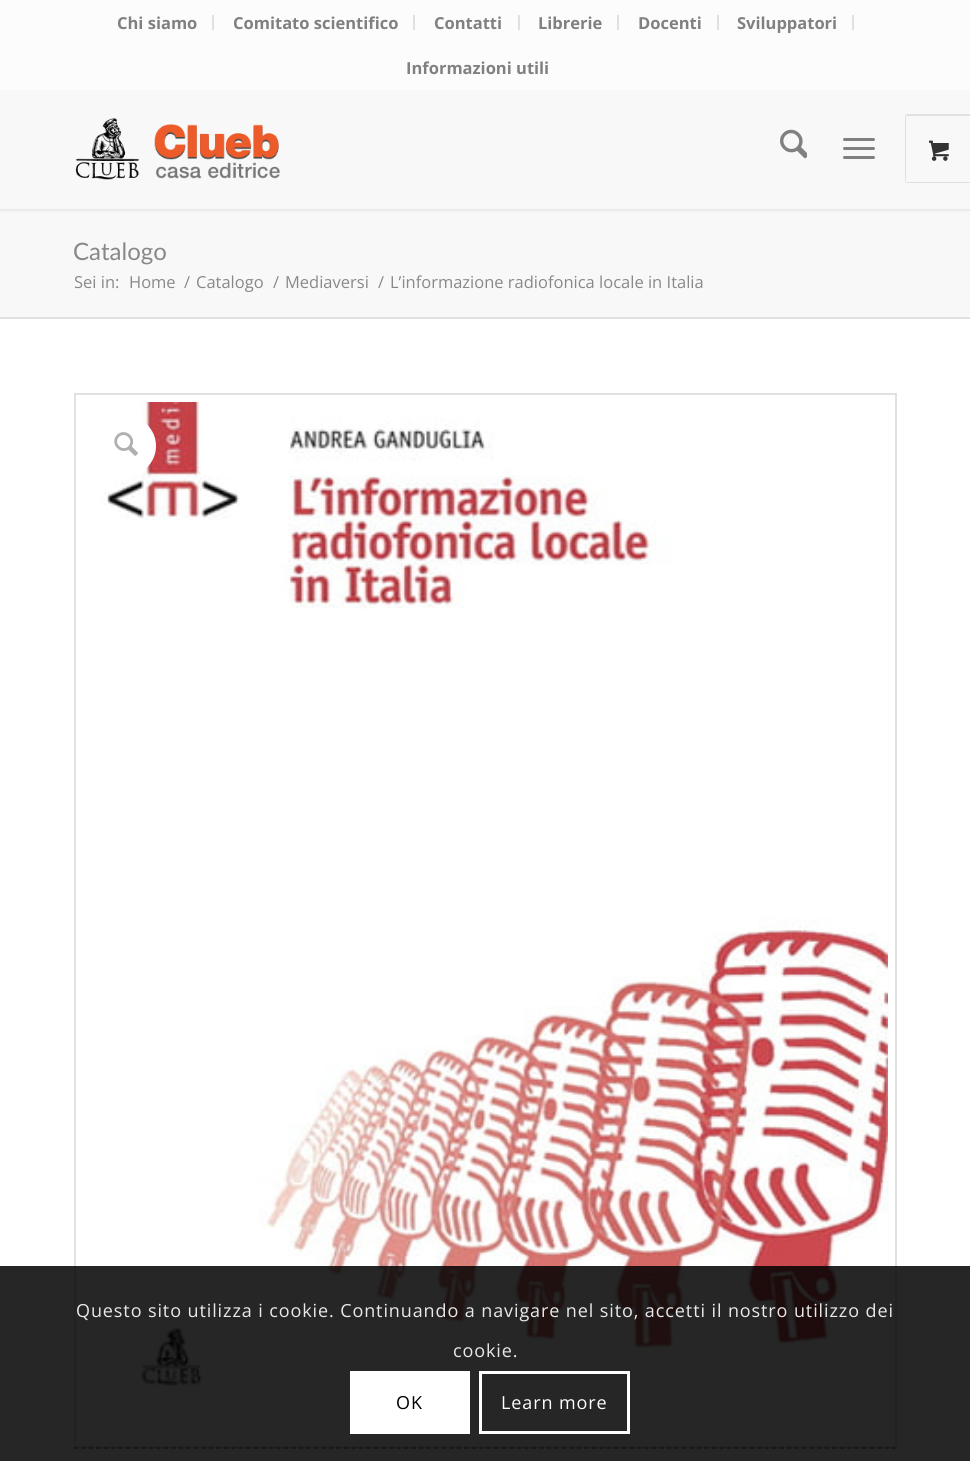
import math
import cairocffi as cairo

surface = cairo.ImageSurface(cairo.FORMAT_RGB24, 970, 1461)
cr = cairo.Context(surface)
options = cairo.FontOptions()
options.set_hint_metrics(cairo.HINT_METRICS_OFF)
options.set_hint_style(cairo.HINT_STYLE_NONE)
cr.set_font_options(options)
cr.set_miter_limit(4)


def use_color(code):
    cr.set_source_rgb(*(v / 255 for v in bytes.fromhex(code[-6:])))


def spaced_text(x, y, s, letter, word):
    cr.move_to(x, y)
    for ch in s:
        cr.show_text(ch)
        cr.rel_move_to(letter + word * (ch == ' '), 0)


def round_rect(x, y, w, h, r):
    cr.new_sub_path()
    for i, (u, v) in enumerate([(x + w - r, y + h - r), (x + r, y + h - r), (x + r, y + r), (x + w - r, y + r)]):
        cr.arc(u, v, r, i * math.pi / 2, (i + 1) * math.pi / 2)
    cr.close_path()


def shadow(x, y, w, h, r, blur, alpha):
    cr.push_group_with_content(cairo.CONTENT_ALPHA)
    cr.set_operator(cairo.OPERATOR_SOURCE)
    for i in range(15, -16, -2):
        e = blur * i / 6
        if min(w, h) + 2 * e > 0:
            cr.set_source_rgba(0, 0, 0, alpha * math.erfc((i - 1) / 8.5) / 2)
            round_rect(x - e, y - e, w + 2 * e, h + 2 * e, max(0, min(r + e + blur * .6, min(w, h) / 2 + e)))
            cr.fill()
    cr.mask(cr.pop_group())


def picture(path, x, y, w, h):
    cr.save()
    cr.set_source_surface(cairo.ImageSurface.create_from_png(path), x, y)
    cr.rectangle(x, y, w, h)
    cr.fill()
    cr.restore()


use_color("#f8f8f8")
cr.paint()
use_color("#000000")
shadow(-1, -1, 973, 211, 0, 1.5, 0.1)
use_color("#fcfcfc")
cr.rectangle(0, 0, 970, 90)
cr.fill()
use_color("#e1e1e1")
cr.rectangle(212, 15, 2, 15)
cr.fill()
cr.select_font_face("Open Sans", cairo.FONT_SLANT_NORMAL, cairo.FONT_WEIGHT_BOLD)
cr.set_font_size(16.5)
use_color("#808080")
cr.move_to(117, 29)
cr.show_text("Chi siamo")
use_color("#e1e1e1")
cr.rectangle(413, 15, 2, 15)
cr.fill()
use_color("#808080")
cr.move_to(233, 29)
cr.show_text("Comitato scientifico")
use_color("#e1e1e1")
cr.rectangle(518, 15, 2, 15)
cr.fill()
use_color("#808080")
cr.move_to(434, 29)
cr.show_text("Contatti")
use_color("#e1e1e1")
cr.rectangle(617, 15, 2, 15)
cr.fill()
use_color("#808080")
cr.move_to(538, 29)
cr.show_text("Librerie")
use_color("#e1e1e1")
cr.rectangle(717, 15, 2, 15)
cr.fill()
use_color("#808080")
cr.move_to(638, 29)
cr.show_text("Docenti")
use_color("#e1e1e1")
cr.rectangle(852, 15, 2, 15)
cr.fill()
use_color("#808080")
cr.move_to(737, 29)
cr.show_text("Sviluppatori")
cr.move_to(406, 74)
cr.show_text("Informazioni utili")
use_color("#f8f8f8")
cr.rectangle(0, 90, 970, 119)
cr.fill()
picture("img1.png", 75, 118, 206, 62)
picture("img2.png", 780, 129, 27, 30)
use_color("#808080")
round_rect(843, 147, 32, 3, 1.5)
cr.fill()
round_rect(843, 138, 32, 3, 1.5)
cr.fill()
round_rect(843, 156, 32, 3, 1.5)
cr.fill()
round_rect(906, 115, 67, 67, 2)
use_color("#e1e1e1")
cr.stroke()
use_color("#f8f8f8")
cr.rectangle(906, 116, 64, 66)
cr.fill()
picture("img3.png", 929, 140, 20, 21)
cr.select_font_face("Lato")
cr.set_font_size(24)
use_color("#888888")
cr.move_to(73, 260)
cr.show_text("Catalogo")
cr.select_font_face("Open Sans")
cr.set_font_size(16.5)
cr.move_to(74, 288)
cr.show_text("Sei in:")
cr.move_to(129, 288)
cr.show_text("Home")
cr.move_to(184, 288)
cr.show_text("/")
cr.move_to(196, 288)
cr.show_text("Catalogo")
cr.move_to(273, 288)
cr.show_text("/")
cr.move_to(285, 288)
cr.show_text("Mediaversi")
cr.move_to(378, 288)
cr.show_text("/")
cr.move_to(390, 288)
cr.show_text("L’informazione radiofonica locale in Italia")
use_color("#ffffff")
cr.rectangle(0, 319, 970, 1142)
cr.fill()
use_color("#e1e1e1")
cr.rectangle(0, 317, 970, 2)
cr.fill()
cr.rectangle(75, 394, 821, 1053)
cr.stroke()
picture("img4.png", 101, 402, 787, 987)
use_color("#ffffff")
cr.arc(126, 446, 30, 0, 2 * math.pi)
cr.fill()
picture("img5.png", 114, 432, 24, 24)
cr.new_path()
cr.move_to(73.5, 1448)
cr.line_to(897, 1448)
use_color("#8d8d8d")
cr.set_line_width(1.5)
cr.set_dash([4.5, 3.01])
cr.stroke()
cr.set_source_rgba(0, 0, 0, 0.85)
cr.rectangle(0, 1266, 970, 195)
cr.fill()
cr.set_font_size(18)
use_color("#e9e9e9")
spaced_text(76, 1317, "Questo sito utilizza i cookie. Continuando a navigare nel sito, accetti il nostro utilizzo dei", 0.9, 0)
spaced_text(453, 1357, "cookie.", 0.9, 0)
use_color("#ffffff")
cr.rectangle(350, 1371, 120, 63)
cr.fill()
use_color("#000000")
spaced_text(396, 1409, "OK", 0.9, 0)
cr.rectangle(480.5, 1372.5, 148, 60)
use_color("#ffffff")
cr.set_line_width(3)
cr.set_dash([])
cr.stroke()
spaced_text(501, 1409, "Learn more", 0.9, 0)
surface.write_to_png("result.png")
